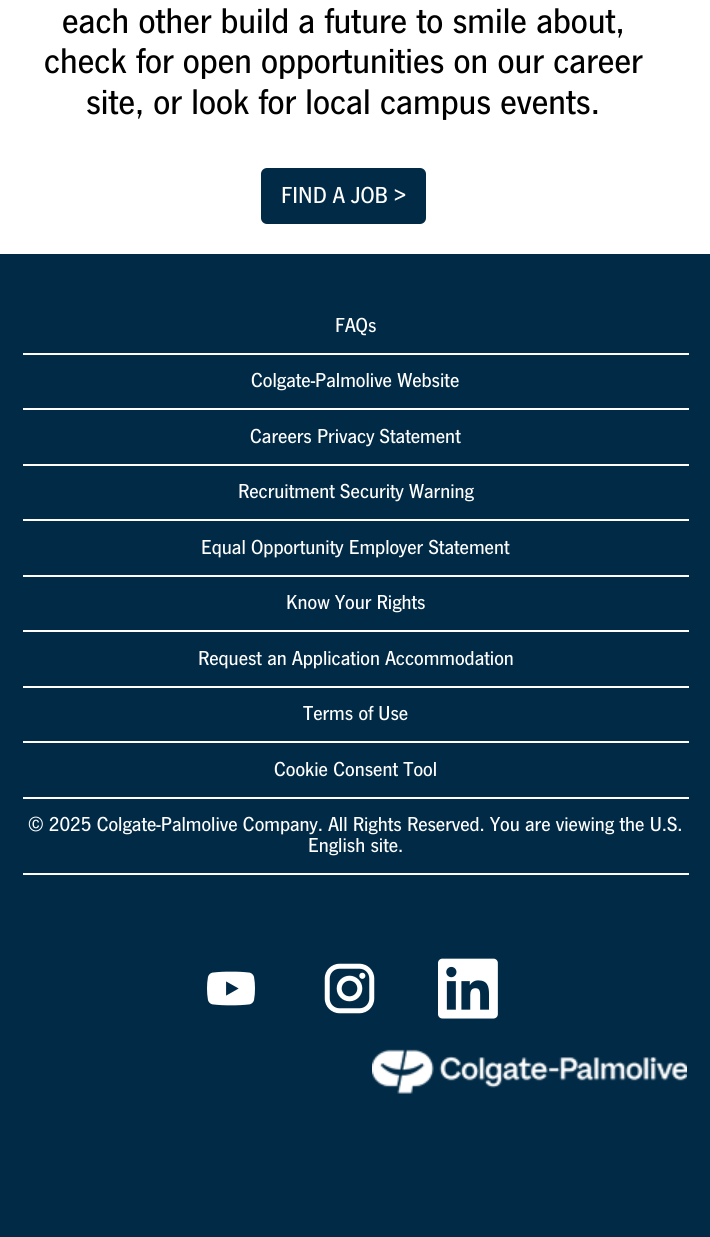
import math
import cairocffi as cairo

surface = cairo.ImageSurface(cairo.FORMAT_RGB24, 710, 1237)
cr = cairo.Context(surface)
options = cairo.FontOptions()
options.set_hint_metrics(cairo.HINT_METRICS_OFF)
options.set_hint_style(cairo.HINT_STYLE_NONE)
cr.set_font_options(options)
cr.set_miter_limit(4)


def use_color(code):
    cr.set_source_rgb(*(v / 255 for v in bytes.fromhex(code[-6:])))


def round_rect(x, y, w, h, r):
    cr.new_sub_path()
    for i, (u, v) in enumerate([(x + w - r, y + h - r), (x + r, y + h - r), (x + r, y + r), (x + w - r, y + r)]):
        cr.arc(u, v, r, i * math.pi / 2, (i + 1) * math.pi / 2)
    cr.close_path()


def picture(path, x, y, w, h):
    cr.save()
    cr.set_source_surface(cairo.ImageSurface.create_from_png(path), x, y)
    cr.rectangle(x, y, w, h)
    cr.fill()
    cr.restore()


use_color("#ffffff")
cr.paint()
cr.select_font_face("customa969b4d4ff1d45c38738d")
cr.set_font_size(37.1)
use_color("#000000")
cr.move_to(62, 33)
cr.show_text("each other build a future to smile about,")
cr.move_to(44, 73)
cr.show_text("check for open opportunities on our career")
cr.move_to(86, 114)
cr.show_text("site, or look for local campus events.")
use_color("#002a46")
round_rect(261, 168, 165, 56, 6)
cr.fill()
cr.set_font_size(24)
use_color("#ffffff")
cr.move_to(281, 203)
cr.show_text("FIND A JOB >")
use_color("#002a46")
cr.rectangle(0, 254, 710, 983)
cr.fill()
use_color("#ffffff")
cr.rectangle(23, 353, 666, 2)
cr.fill()
cr.set_font_size(21)
cr.move_to(335, 332)
cr.show_text("FAQs")
cr.rectangle(23, 408, 666, 2)
cr.fill()
cr.move_to(251, 387)
cr.show_text("Colgate-Palmolive Website")
cr.rectangle(23, 464, 666, 2)
cr.fill()
cr.move_to(250, 443)
cr.show_text("Careers Privacy Statement")
cr.rectangle(23, 519, 666, 2)
cr.fill()
cr.move_to(238, 498)
cr.show_text("Recruitment Security Warning")
cr.rectangle(23, 575, 666, 2)
cr.fill()
cr.move_to(201, 554)
cr.show_text("Equal Opportunity Employer Statement")
cr.rectangle(23, 630, 666, 2)
cr.fill()
cr.move_to(286, 609)
cr.show_text("Know Your Rights")
cr.rectangle(23, 686, 666, 2)
cr.fill()
cr.move_to(198, 665)
cr.show_text("Request an Application Accommodation")
cr.rectangle(23, 741, 666, 2)
cr.fill()
cr.move_to(303, 720)
cr.show_text("Terms of Use")
cr.rectangle(23, 797, 666, 2)
cr.fill()
cr.move_to(274, 776)
cr.show_text("Cookie Consent Tool")
cr.rectangle(23, 873, 666, 2)
cr.fill()
cr.move_to(28, 831)
cr.show_text("© 2025 Colgate-Palmolive Company. All Rights Reserved. You are viewing the U.S.")
cr.move_to(308, 852)
cr.show_text("English site.")
picture("img1.png", 207, 971, 48, 35)
picture("img2.png", 324, 963, 51, 51)
picture("img3.png", 438, 958, 60, 61)
picture("img4.png", 372, 1049, 315, 45)
surface.write_to_png("result.png")
